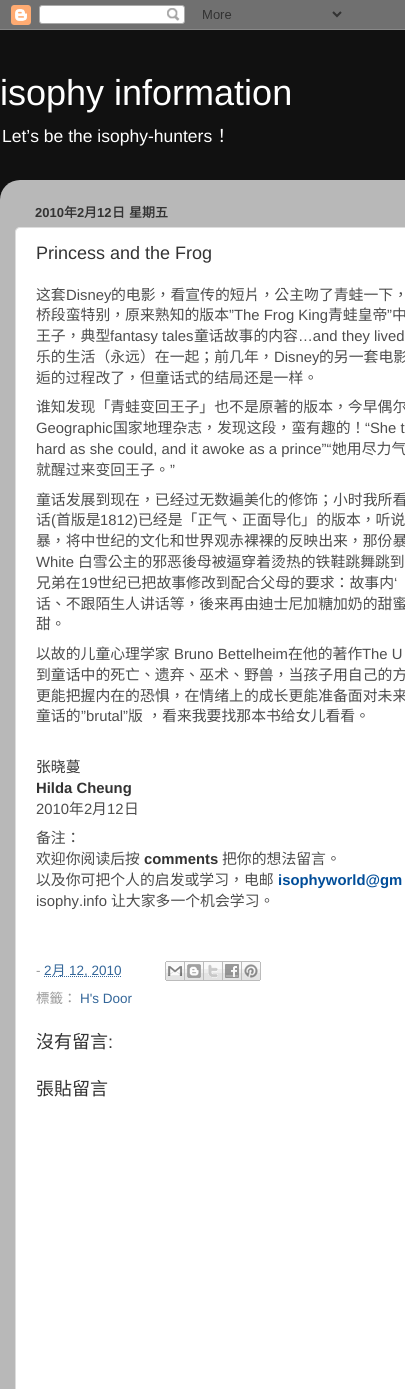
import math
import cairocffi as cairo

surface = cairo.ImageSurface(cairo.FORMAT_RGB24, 405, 1389)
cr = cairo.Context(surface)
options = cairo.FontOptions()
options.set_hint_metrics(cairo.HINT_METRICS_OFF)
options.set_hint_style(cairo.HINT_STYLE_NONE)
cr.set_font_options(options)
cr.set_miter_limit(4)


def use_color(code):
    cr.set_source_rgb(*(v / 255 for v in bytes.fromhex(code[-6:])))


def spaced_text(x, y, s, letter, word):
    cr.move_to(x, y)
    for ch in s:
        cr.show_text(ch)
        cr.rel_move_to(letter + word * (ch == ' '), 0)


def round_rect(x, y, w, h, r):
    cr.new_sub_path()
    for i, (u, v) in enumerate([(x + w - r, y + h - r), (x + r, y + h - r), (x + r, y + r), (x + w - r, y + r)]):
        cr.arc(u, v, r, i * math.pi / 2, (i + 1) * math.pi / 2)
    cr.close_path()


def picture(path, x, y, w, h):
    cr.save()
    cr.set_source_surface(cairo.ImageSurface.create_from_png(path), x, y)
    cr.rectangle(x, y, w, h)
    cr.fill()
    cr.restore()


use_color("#111111")
cr.paint()
picture("img1.png", 0, 0, 405, 30)
cr.select_font_face("Liberation Sans")
cr.set_font_size(36)
use_color("#ffffff")
cr.move_to(0, 105)
cr.show_text("isophy information")
cr.set_font_size(17.5)
cr.move_to(2, 142)
cr.show_text("Let’s be the isophy-hunters")
cr.select_font_face("Noto Sans CJK TC")
cr.move_to(213, 142)
cr.show_text("！")
picture("img2.png", 0, 180, 405, 1209)
cr.select_font_face("Liberation Sans", cairo.FONT_SLANT_NORMAL, cairo.FONT_WEIGHT_BOLD)
cr.set_font_size(13)
use_color("#333333")
cr.move_to(35, 217)
cr.show_text("2010")
cr.select_font_face("Noto Sans CJK TC", cairo.FONT_SLANT_NORMAL, cairo.FONT_WEIGHT_BOLD)
cr.move_to(64, 217)
cr.show_text("年")
cr.select_font_face("Liberation Sans", cairo.FONT_SLANT_NORMAL, cairo.FONT_WEIGHT_BOLD)
cr.move_to(77, 217)
cr.show_text("2")
cr.select_font_face("Noto Sans CJK TC", cairo.FONT_SLANT_NORMAL, cairo.FONT_WEIGHT_BOLD)
cr.move_to(84, 217)
cr.show_text("月")
cr.select_font_face("Liberation Sans", cairo.FONT_SLANT_NORMAL, cairo.FONT_WEIGHT_BOLD)
cr.move_to(97, 217)
cr.show_text("12")
cr.select_font_face("Noto Sans CJK TC", cairo.FONT_SLANT_NORMAL, cairo.FONT_WEIGHT_BOLD)
spaced_text(112, 217, "日 星期五", 0, 1)
use_color("#ffffff")
round_rect(15.5, 227.5, 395, 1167, 4.5)
cr.fill_preserve()
use_color("#dddddd")
cr.set_line_width(1)
cr.stroke()
cr.select_font_face("Liberation Sans")
cr.set_font_size(18)
use_color("#333333")
cr.move_to(36, 259)
cr.show_text("Princess and the Frog")
cr.select_font_face("Noto Sans CJK TC")
cr.set_font_size(14.85)
use_color("#4d4d4d")
cr.move_to(36, 300)
cr.show_text("这套")
cr.select_font_face("Liberation Sans")
cr.move_to(66, 300)
cr.show_text("Disney")
cr.select_font_face("Noto Sans CJK TC")
cr.move_to(111, 300)
cr.show_text("的电影，看宣传的短片，公主吻了青蛙一下，")
cr.move_to(36, 320)
cr.show_text("桥段蛮特别，原来熟知的版本")
cr.select_font_face("Liberation Sans")
cr.move_to(229, 320)
cr.show_text("”The Frog King")
cr.select_font_face("Noto Sans CJK TC")
cr.move_to(328, 320)
cr.show_text("青蛙皇帝")
cr.select_font_face("Liberation Sans")
cr.move_to(387, 320)
cr.show_text("”")
cr.select_font_face("Noto Sans CJK TC")
cr.move_to(392, 320)
cr.show_text("中")
cr.move_to(36, 341)
cr.show_text("王子，典型")
cr.select_font_face("Liberation Sans")
cr.move_to(110, 341)
cr.show_text("fantasy tales")
cr.select_font_face("Noto Sans CJK TC")
cr.move_to(194, 341)
cr.show_text("童话故事的内容")
cr.select_font_face("Liberation Sans")
cr.move_to(298, 341)
cr.show_text("…and they lived")
cr.select_font_face("Noto Sans CJK TC")
cr.move_to(36, 362)
cr.show_text("乐的生活（永远）在一起；前几年，")
cr.select_font_face("Liberation Sans")
cr.move_to(274, 362)
cr.show_text("Disney")
cr.select_font_face("Noto Sans CJK TC")
cr.move_to(319, 362)
cr.show_text("的另一套电影")
cr.move_to(36, 383)
cr.show_text("逅的过程改了，但童话式的结局还是一样。")
cr.move_to(36, 412)
cr.show_text("谁知发现「青蛙变回王子」也不是原著的版本，今早偶尔")
cr.select_font_face("Liberation Sans")
cr.move_to(36, 433)
cr.show_text("Geographic")
cr.select_font_face("Noto Sans CJK TC")
cr.move_to(113, 433)
cr.show_text("国家地理杂志，发现这段，蛮有趣的！")
cr.select_font_face("Liberation Sans")
cr.move_to(365, 433)
cr.show_text("“She t")
cr.move_to(36, 454)
cr.show_text("hard as she could, and it awoke as a prince”“")
cr.select_font_face("Noto Sans CJK TC")
cr.move_to(332, 454)
cr.show_text("她用尽力气")
cr.move_to(36, 475)
cr.show_text("就醒过来变回王子。")
cr.select_font_face("Liberation Sans")
cr.move_to(170, 475)
cr.show_text("”")
cr.select_font_face("Noto Sans CJK TC")
cr.move_to(36, 505)
cr.show_text("童话发展到现在，已经过无数遍美化的修饰；小时我所看")
cr.move_to(36, 525)
cr.show_text("话")
cr.select_font_face("Liberation Sans")
cr.move_to(51, 525)
cr.show_text("(")
cr.select_font_face("Noto Sans CJK TC")
cr.move_to(56, 525)
cr.show_text("首版是")
cr.select_font_face("Liberation Sans")
cr.move_to(100, 525)
cr.show_text("1812)")
cr.select_font_face("Noto Sans CJK TC")
cr.move_to(138, 525)
cr.show_text("已经是「正气、正面导化」的版本，听说")
cr.move_to(36, 546)
cr.show_text("暴，将中世纪的文化和世界观赤裸裸的反映出来，那份暴")
cr.select_font_face("Liberation Sans")
cr.move_to(36, 567)
cr.show_text("White")
cr.select_font_face("Noto Sans CJK TC")
cr.move_to(78, 567)
cr.show_text("白雪公主的邪恶後母被逼穿着烫热的铁鞋跳舞跳到")
cr.move_to(36, 588)
cr.show_text("兄弟在")
cr.select_font_face("Liberation Sans")
cr.move_to(81, 588)
cr.show_text("19")
cr.select_font_face("Noto Sans CJK TC")
cr.move_to(97, 588)
cr.show_text("世纪已把故事修改到配合父母的要求：故事内")
cr.select_font_face("Liberation Sans")
cr.move_to(394, 588)
cr.show_text("‘")
cr.select_font_face("Noto Sans CJK TC")
cr.move_to(36, 609)
cr.show_text("话、不跟陌生人讲话等，後来再由迪士尼加糖加奶的甜蜜")
cr.move_to(36, 629)
cr.show_text("甜。")
cr.move_to(36, 659)
cr.show_text("以故的儿童心理学家")
cr.select_font_face("Liberation Sans")
cr.move_to(174, 659)
cr.show_text("Bruno Bettelheim")
cr.select_font_face("Noto Sans CJK TC")
cr.move_to(288, 659)
cr.show_text("在他的著作")
cr.select_font_face("Liberation Sans")
cr.move_to(362, 659)
cr.show_text("The U")
cr.select_font_face("Noto Sans CJK TC")
cr.move_to(36, 680)
cr.show_text("到童话中的死亡、遗弃、巫术、野兽，当孩子用自己的方")
cr.move_to(36, 701)
cr.show_text("更能把握内在的恐惧，在情绪上的成长更能准备面对未来")
cr.move_to(36, 721)
cr.show_text("童话的")
cr.select_font_face("Liberation Sans")
cr.move_to(81, 721)
cr.show_text("”brutal”")
cr.select_font_face("Noto Sans CJK TC")
spaced_text(128, 721, "版 ，看来我要找那本书给女儿看看。", 0, 1)
use_color("#333333")
cr.move_to(36, 772)
cr.show_text("张晓蔓")
cr.select_font_face("Liberation Sans", cairo.FONT_SLANT_NORMAL, cairo.FONT_WEIGHT_BOLD)
cr.move_to(36, 793)
cr.show_text("Hilda Cheung")
cr.select_font_face("Liberation Sans")
use_color("#4d4d4d")
cr.move_to(36, 814)
cr.show_text("2010")
cr.select_font_face("Noto Sans CJK TC")
cr.move_to(69, 814)
cr.show_text("年")
cr.select_font_face("Liberation Sans")
cr.move_to(84, 814)
cr.show_text("2")
cr.select_font_face("Noto Sans CJK TC")
cr.move_to(92, 814)
cr.show_text("月")
cr.select_font_face("Liberation Sans")
cr.move_to(107, 814)
cr.show_text("12")
cr.select_font_face("Noto Sans CJK TC")
cr.move_to(124, 814)
cr.show_text("日")
cr.move_to(36, 843)
cr.show_text("备注：")
cr.move_to(36, 864)
cr.show_text("欢迎你阅读后按")
cr.select_font_face("Liberation Sans", cairo.FONT_SLANT_NORMAL, cairo.FONT_WEIGHT_BOLD)
use_color("#333333")
cr.move_to(144, 864)
cr.show_text("comments")
cr.select_font_face("Noto Sans CJK TC")
use_color("#4d4d4d")
cr.move_to(222, 864)
cr.show_text("把你的想法留言。")
cr.move_to(36, 885)
cr.show_text("以及你可把个人的启发或学习，电邮")
cr.select_font_face("Liberation Sans", cairo.FONT_SLANT_NORMAL, cairo.FONT_WEIGHT_BOLD)
use_color("#004d99")
cr.move_to(278, 885)
cr.show_text("isophyworld@gm")
cr.select_font_face("Liberation Sans")
use_color("#4d4d4d")
cr.move_to(36, 906)
cr.show_text("isophy.info")
cr.select_font_face("Noto Sans CJK TC")
cr.move_to(111, 906)
cr.show_text("让大家多一个机会学习。")
cr.select_font_face("Liberation Sans")
cr.set_font_size(13.5)
use_color("#999999")
cr.move_to(36, 975)
cr.show_text("-")
use_color("#336699")
cr.move_to(44, 975)
cr.show_text("2")
cr.new_path()
cr.move_to(44, 976.5)
cr.line_to(121.5, 976.5)
cr.set_dash([1, 1])
cr.stroke()
cr.select_font_face("Noto Sans CJK TC")
cr.move_to(52, 975)
cr.show_text("月")
cr.select_font_face("Liberation Sans")
cr.move_to(69, 975)
cr.show_text("12, 2010")
picture("img3.png", 165, 961, 20, 20)
picture("img4.png", 185, 961, 19, 20)
picture("img5.png", 204, 961, 19, 20)
picture("img6.png", 223, 961, 19, 20)
picture("img7.png", 242, 961, 19, 20)
cr.select_font_face("Noto Sans CJK TC")
use_color("#999999")
cr.move_to(36, 1003)
cr.show_text("標籤：")
cr.select_font_face("Liberation Sans")
use_color("#336699")
cr.move_to(80, 1003)
cr.show_text("H's Door")
cr.select_font_face("Noto Sans CJK TC")
cr.set_font_size(18)
use_color("#333333")
cr.move_to(36, 1048)
cr.show_text("沒有留言")
cr.select_font_face("Liberation Sans")
cr.move_to(108, 1048)
cr.show_text(":")
cr.select_font_face("Noto Sans CJK TC")
cr.move_to(36, 1095)
cr.show_text("張貼留言")
surface.write_to_png("result.png")
